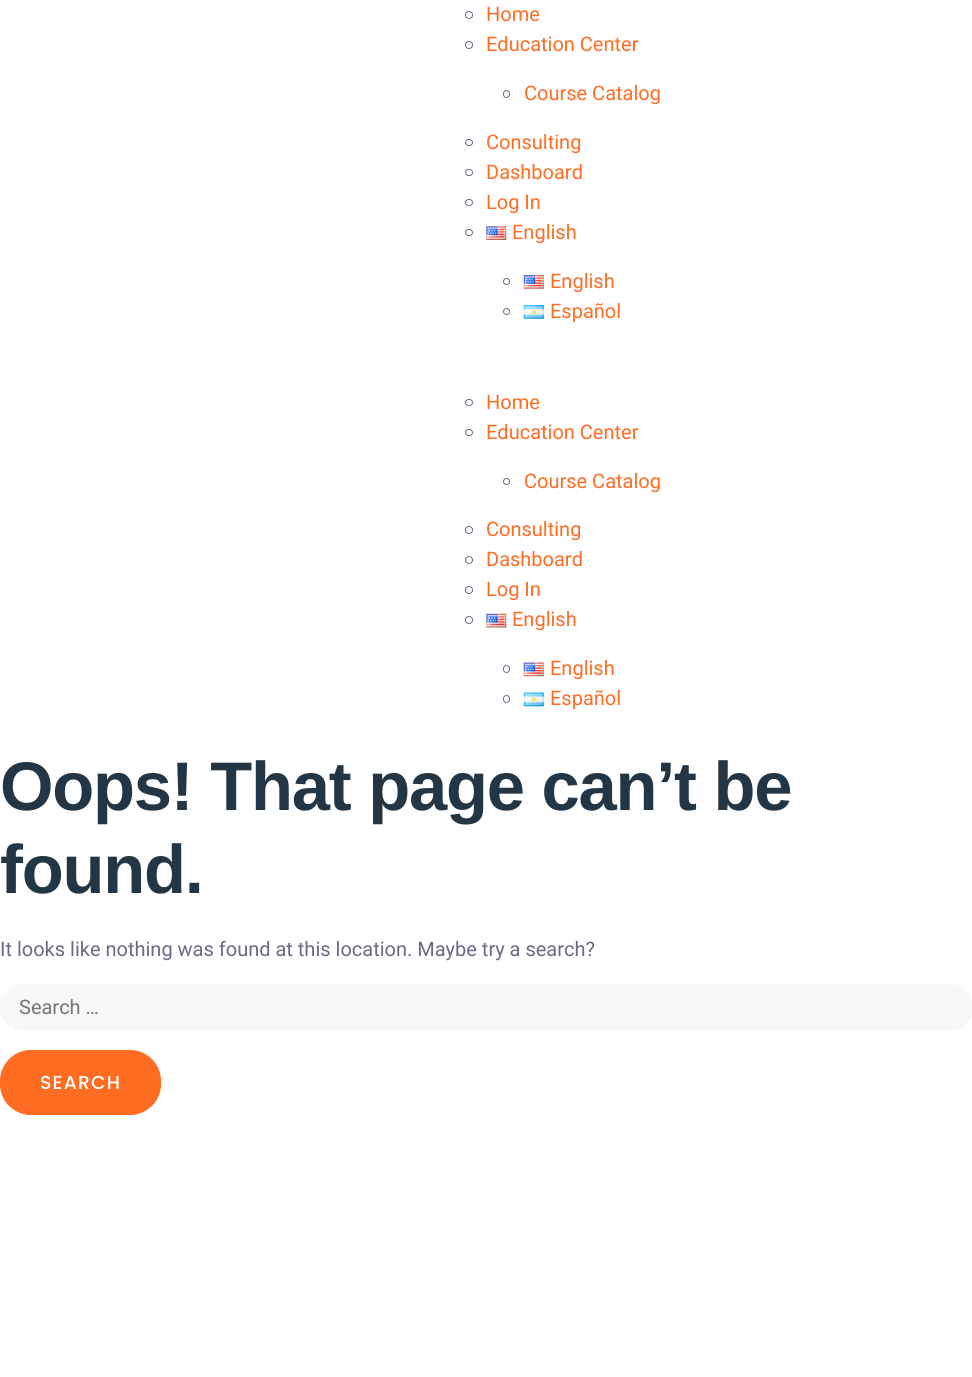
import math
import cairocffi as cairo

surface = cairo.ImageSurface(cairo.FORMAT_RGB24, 972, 1377)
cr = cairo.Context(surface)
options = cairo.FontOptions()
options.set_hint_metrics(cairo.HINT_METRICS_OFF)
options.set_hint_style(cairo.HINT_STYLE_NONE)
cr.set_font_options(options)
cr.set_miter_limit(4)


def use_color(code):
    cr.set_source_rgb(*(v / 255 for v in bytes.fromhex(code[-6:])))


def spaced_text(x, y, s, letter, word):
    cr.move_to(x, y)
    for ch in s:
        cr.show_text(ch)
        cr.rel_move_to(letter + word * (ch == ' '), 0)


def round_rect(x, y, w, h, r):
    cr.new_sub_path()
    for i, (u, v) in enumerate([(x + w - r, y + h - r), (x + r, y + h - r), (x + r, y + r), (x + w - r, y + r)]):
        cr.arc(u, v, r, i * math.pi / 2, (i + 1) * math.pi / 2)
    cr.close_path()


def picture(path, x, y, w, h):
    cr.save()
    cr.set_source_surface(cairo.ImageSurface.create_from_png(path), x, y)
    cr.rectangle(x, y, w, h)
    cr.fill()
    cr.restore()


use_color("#ffffff")
cr.paint()
cr.arc(469, 15, 3.5, 0, 2 * math.pi)
use_color("#696a87")
cr.set_line_width(1)
cr.stroke()
cr.select_font_face("Roboto")
cr.set_font_size(20)
use_color("#ff6c22")
cr.move_to(486, 21)
cr.show_text("Home")
cr.new_path()
cr.arc(469, 45, 3.5, 0, 2 * math.pi)
use_color("#696a87")
cr.stroke()
use_color("#ff6c22")
cr.move_to(486, 51)
cr.show_text("Education Center")
round_rect(503.5, 90.5, 6, 7, 3)
use_color("#696a87")
cr.stroke()
use_color("#ff6c22")
cr.move_to(524, 100)
cr.show_text("Course Catalog")
round_rect(465.5, 139.5, 7, 6, 3)
use_color("#696a87")
cr.stroke()
use_color("#ff6c22")
cr.move_to(486, 149)
cr.show_text("Consulting")
round_rect(465.5, 169.5, 7, 6, 3)
use_color("#696a87")
cr.stroke()
use_color("#ff6c22")
cr.move_to(486, 179)
cr.show_text("Dashboard")
round_rect(465.5, 199.5, 7, 6, 3)
use_color("#696a87")
cr.stroke()
use_color("#ff6c22")
cr.move_to(486, 209)
cr.show_text("Log In")
round_rect(465.5, 229.5, 7, 6, 3)
use_color("#696a87")
cr.stroke()
picture("img1.png", 486, 226, 21, 14)
use_color("#ff6c22")
cr.move_to(512, 239)
cr.show_text("English")
cr.new_path()
cr.arc(506.5, 281.5, 3, 0, 2 * math.pi)
use_color("#696a87")
cr.stroke()
picture("img2.png", 523, 275, 21, 14)
use_color("#ff6c22")
cr.move_to(550, 288)
cr.show_text("English")
cr.new_path()
cr.arc(506.5, 311.5, 3, 0, 2 * math.pi)
use_color("#696a87")
cr.stroke()
picture("img3.png", 523, 305, 21, 14)
use_color("#ff6c22")
cr.move_to(550, 318)
cr.show_text("Español")
round_rect(465.5, 399.5, 7, 6, 3)
use_color("#696a87")
cr.stroke()
use_color("#ff6c22")
cr.move_to(486, 409)
cr.show_text("Home")
round_rect(465.5, 429.5, 7, 6, 3)
use_color("#696a87")
cr.stroke()
use_color("#ff6c22")
cr.move_to(486, 439)
cr.show_text("Education Center")
cr.new_path()
cr.arc(506.5, 481.5, 3, 0, 2 * math.pi)
use_color("#696a87")
cr.stroke()
use_color("#ff6c22")
cr.move_to(524, 488)
cr.show_text("Course Catalog")
cr.new_path()
cr.arc(469, 530, 3.5, 0, 2 * math.pi)
use_color("#696a87")
cr.stroke()
use_color("#ff6c22")
cr.move_to(486, 536)
cr.show_text("Consulting")
cr.new_path()
cr.arc(469, 560, 3.5, 0, 2 * math.pi)
use_color("#696a87")
cr.stroke()
use_color("#ff6c22")
cr.move_to(486, 566)
cr.show_text("Dashboard")
cr.new_path()
cr.arc(469, 590, 3.5, 0, 2 * math.pi)
use_color("#696a87")
cr.stroke()
use_color("#ff6c22")
cr.move_to(486, 596)
cr.show_text("Log In")
cr.new_path()
cr.arc(469, 620, 3.5, 0, 2 * math.pi)
use_color("#696a87")
cr.stroke()
picture("img4.png", 486, 613, 21, 15)
use_color("#ff6c22")
cr.move_to(512, 626)
cr.show_text("English")
round_rect(503.5, 665.5, 6, 7, 3)
use_color("#696a87")
cr.stroke()
picture("img5.png", 523, 662, 21, 15)
use_color("#ff6c22")
cr.move_to(550, 675)
cr.show_text("English")
round_rect(503.5, 695.5, 6, 7, 3)
use_color("#696a87")
cr.stroke()
picture("img6.png", 523, 692, 21, 15)
use_color("#ff6c22")
cr.move_to(550, 705)
cr.show_text("Español")
cr.select_font_face("Liberation Sans", cairo.FONT_SLANT_NORMAL, cairo.FONT_WEIGHT_BOLD)
cr.set_font_size(68.75)
use_color("#223645")
spaced_text(0, 810, "Oops! That page can’t be", -1.25, 0)
spaced_text(0, 893, "found.", -1.25, 0)
cr.select_font_face("Roboto")
cr.set_font_size(20)
use_color("#696a87")
cr.move_to(0, 956)
cr.show_text("It looks like nothing was found at this location. Maybe try a search?")
use_color("#f8f8f8")
round_rect(0, 984, 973, 47, 23.5)
cr.fill()
use_color("#757575")
cr.move_to(19, 1014)
cr.show_text("Search …")
use_color("#ff6c22")
round_rect(0.5, 1050.5, 160, 64, 30.5)
cr.fill_preserve()
cr.stroke()
cr.select_font_face("Poppins Medium")
cr.set_font_size(18.75)
use_color("#ffffff")
spaced_text(40, 1089, "SEARCH", 1.25, 0)
surface.write_to_png("result.png")
